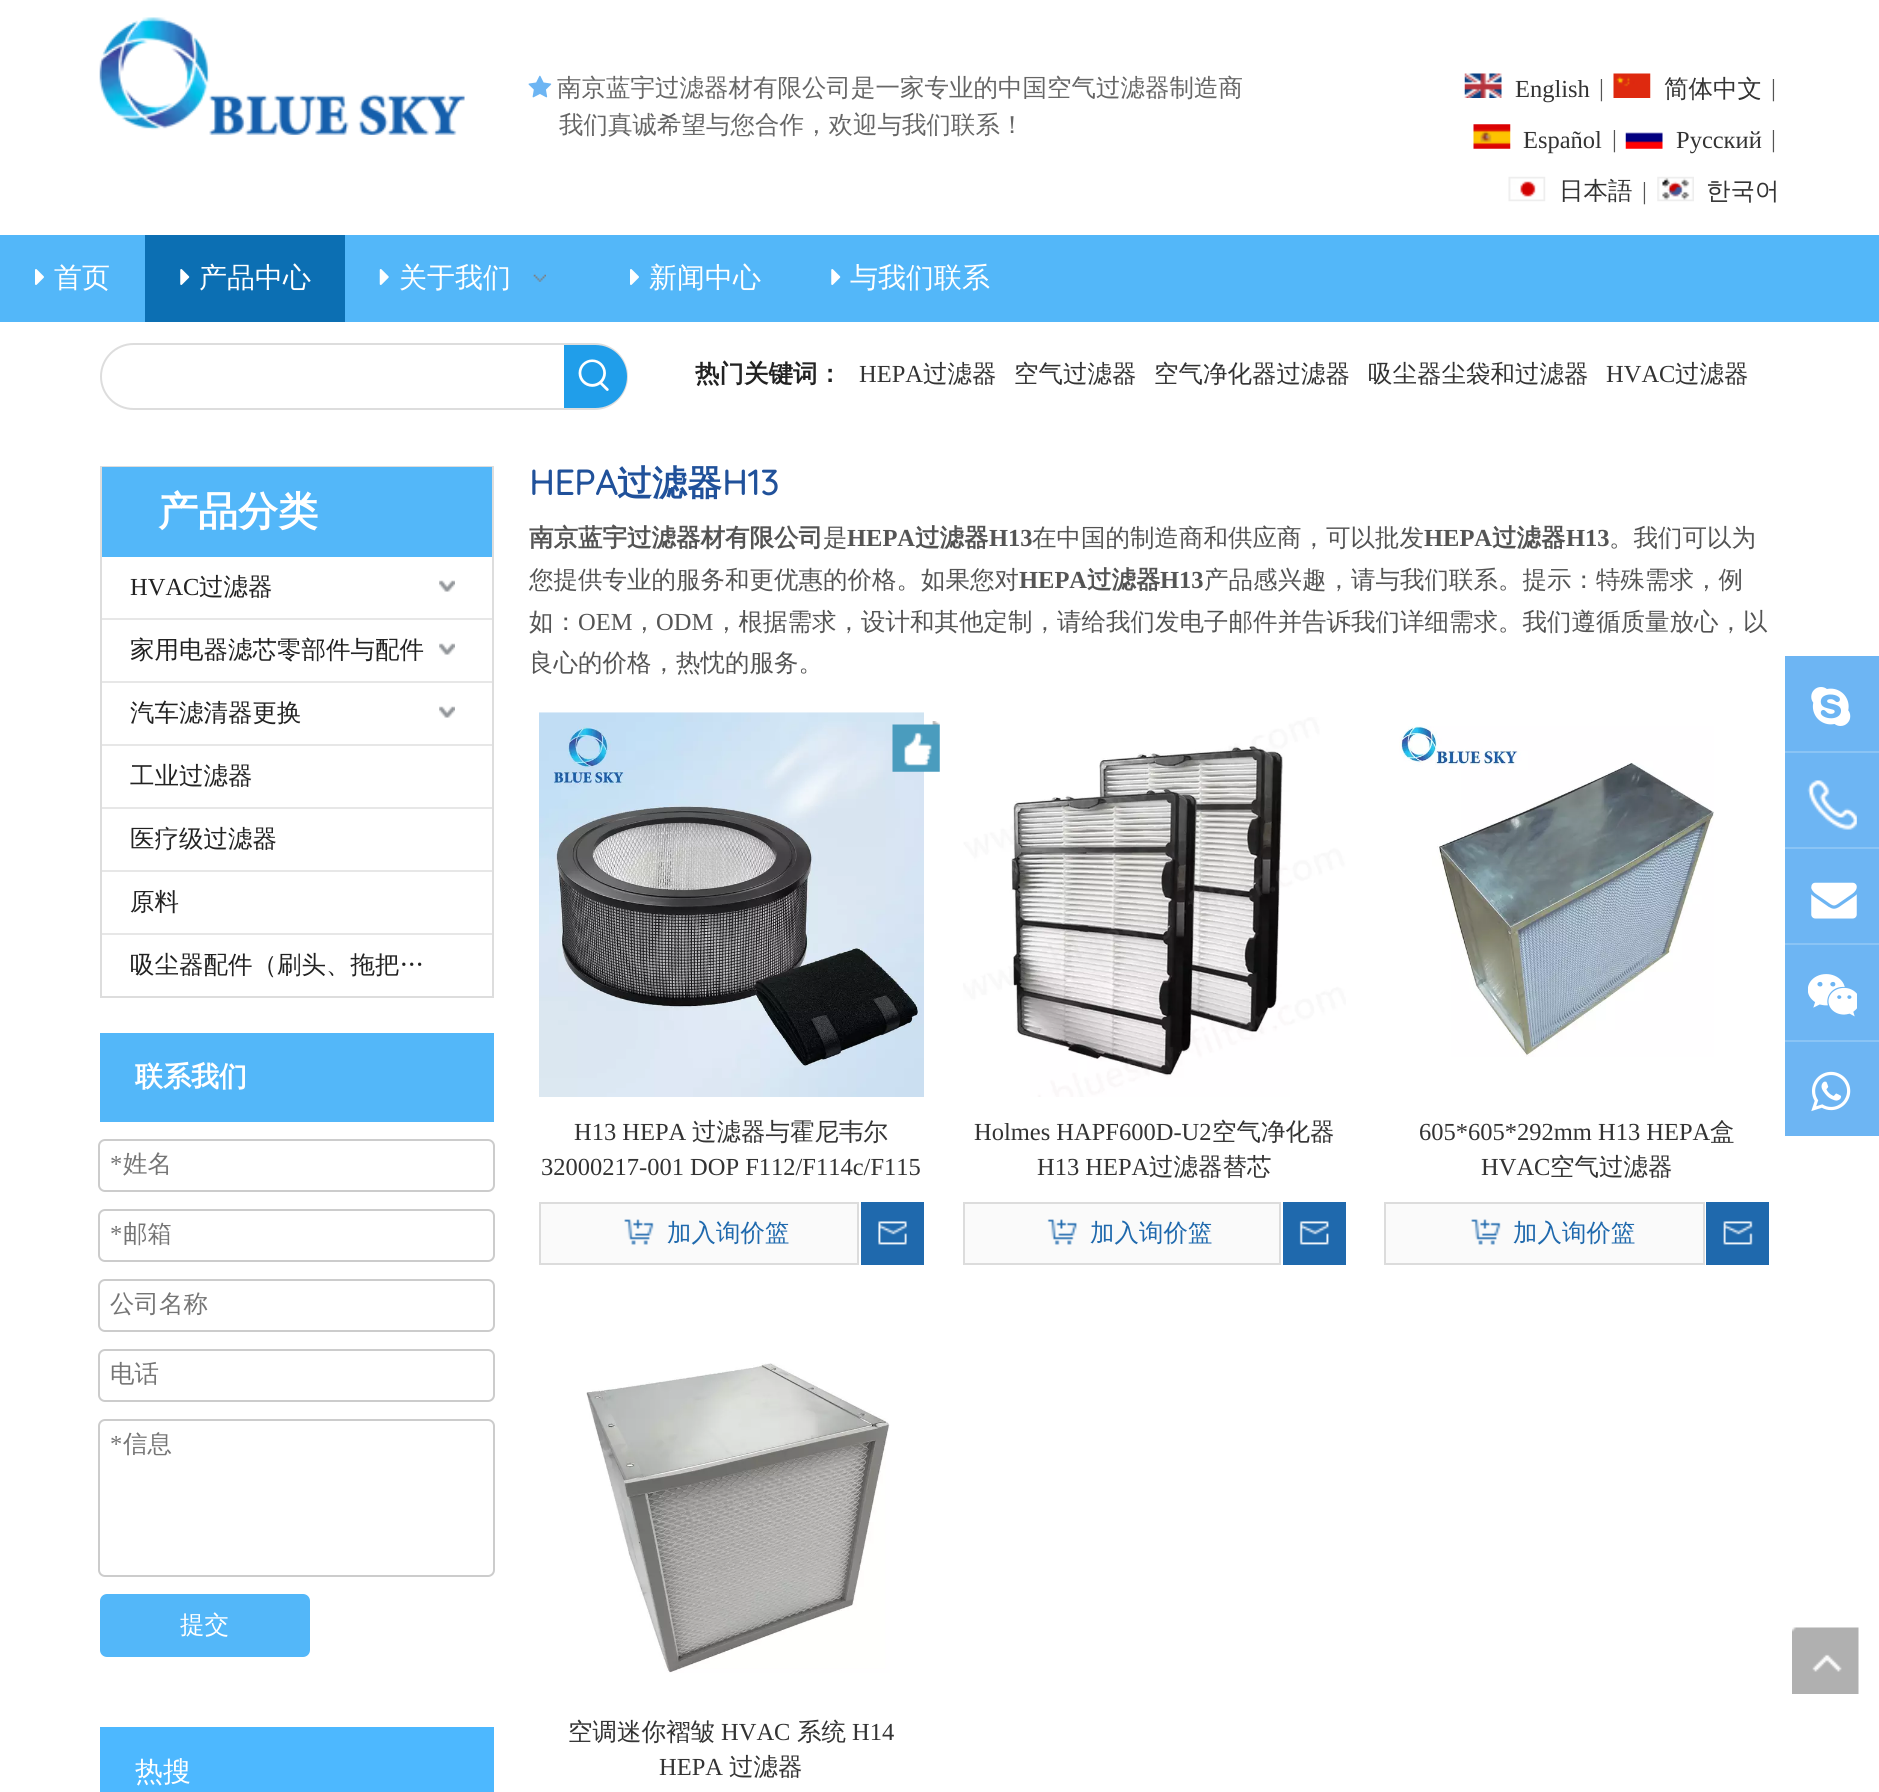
import math
import cairocffi as cairo

surface = cairo.ImageSurface(cairo.FORMAT_RGB24, 1879, 1792)
cr = cairo.Context(surface)
options = cairo.FontOptions()
options.set_hint_metrics(cairo.HINT_METRICS_OFF)
options.set_hint_style(cairo.HINT_STYLE_NONE)
cr.set_font_options(options)
cr.set_miter_limit(4)


def use_color(code):
    cr.set_source_rgb(*(v / 255 for v in bytes.fromhex(code[-6:])))


def round_rect(x, y, w, h, r):
    cr.new_sub_path()
    for i, (u, v) in enumerate([(x + w - r, y + h - r), (x + r, y + h - r), (x + r, y + r), (x + w - r, y + r)]):
        cr.arc(u, v, r, i * math.pi / 2, (i + 1) * math.pi / 2)
    cr.close_path()


def picture(path, x, y, w, h):
    cr.save()
    cr.set_source_surface(cairo.ImageSurface.create_from_png(path), x, y)
    cr.rectangle(x, y, w, h)
    cr.fill()
    cr.restore()


use_color("#ffffff")
cr.paint()
picture("img1.png", 99, 17, 366, 118)
picture("img2.png", 528, 75, 24, 23)
cr.select_font_face("WenQuanYi Zen Hei Medium")
cr.set_font_size(24.5)
use_color("#666666")
cr.move_to(557, 96)
cr.show_text("南京蓝宇过滤器材有限公司是一家专业的中国空气过滤器制造商")
cr.move_to(559, 133)
cr.show_text("我们真诚希望与您合作，欢迎与我们联系！")
picture("img3.png", 1464, 73, 38, 25)
cr.select_font_face("Liberation Serif")
use_color("#333333")
cr.move_to(1515, 97)
cr.show_text("English")
use_color("#545454")
cr.move_to(1599, 96)
cr.show_text("|")
picture("img4.png", 1613, 73, 38, 25)
cr.select_font_face("WenQuanYi Zen Hei Medium")
use_color("#333333")
cr.move_to(1664, 97)
cr.show_text("简体中文")
cr.select_font_face("Liberation Serif")
use_color("#545454")
cr.move_to(1771, 96)
cr.show_text("|")
picture("img5.png", 1473, 124, 38, 25)
use_color("#333333")
cr.move_to(1523, 148)
cr.show_text("Español")
use_color("#545454")
cr.move_to(1612, 147)
cr.show_text("|")
picture("img6.png", 1625, 132, 38, 17)
use_color("#333333")
cr.move_to(1676, 148)
cr.show_text("Pусский")
use_color("#545454")
cr.move_to(1771, 147)
cr.show_text("|")
picture("img7.png", 1508, 176, 38, 26)
cr.select_font_face("WenQuanYi Zen Hei Medium")
use_color("#333333")
cr.move_to(1559, 199)
cr.show_text("日本語")
cr.select_font_face("Liberation Serif")
use_color("#545454")
cr.move_to(1642, 199)
cr.show_text("|")
picture("img8.png", 1657, 176, 37, 26)
cr.select_font_face("WenQuanYi Zen Hei Medium")
use_color("#333333")
cr.move_to(1706, 199)
cr.show_text("한국어")
use_color("#53b7f9")
cr.rectangle(0, 235, 1879, 87)
cr.fill()
picture("img9.png", 35, 269, 9, 16)
cr.set_font_size(28)
use_color("#ffffff")
cr.move_to(54, 287)
cr.show_text("首页")
use_color("#0c6fb3")
cr.rectangle(145, 235, 200, 87)
cr.fill()
picture("img10.png", 180, 269, 10, 16)
use_color("#ffffff")
cr.move_to(199, 287)
cr.show_text("产品中心")
picture("img11.png", 379, 269, 10, 16)
cr.move_to(399, 287)
cr.show_text("关于我们")
picture("img12.png", 533, 274, 13, 8)
picture("img9.png", 630, 269, 9, 16)
cr.move_to(649, 287)
cr.show_text("新闻中心")
picture("img13.png", 831, 269, 10, 16)
cr.move_to(850, 287)
cr.show_text("与我们联系")
round_rect(101, 344, 526, 65, 32.5)
use_color("#dddddd")
cr.stroke()
use_color("#209eea")
cr.new_path()
cr.move_to(564, 345)
cr.line_to(595.5, 345)
cr.curve_to(613, 345, 627, 359, 627, 376.5)
cr.curve_to(627, 394, 613, 408, 595.5, 408)
cr.line_to(564, 408)
cr.close_path()
cr.fill()
picture("img14.png", 578, 359, 31, 32)
cr.select_font_face("WenQuanYi Zen Hei", cairo.FONT_SLANT_NORMAL, cairo.FONT_WEIGHT_BOLD)
cr.set_font_size(24.5)
use_color("#222222")
cr.move_to(695, 382)
cr.show_text("热门关键词：")
cr.select_font_face("Liberation Serif")
use_color("#333333")
cr.move_to(859, 382)
cr.show_text("HEPA")
cr.select_font_face("WenQuanYi Zen Hei Medium")
cr.move_to(923, 382)
cr.show_text("过滤器")
cr.move_to(1014, 382)
cr.show_text("空气过滤器")
cr.move_to(1154, 382)
cr.show_text("空气净化器过滤器")
cr.move_to(1368, 382)
cr.show_text("吸尘器尘袋和过滤器")
cr.select_font_face("Liberation Serif")
cr.move_to(1606, 382)
cr.show_text("HVAC")
cr.select_font_face("WenQuanYi Zen Hei Medium")
cr.move_to(1675, 382)
cr.show_text("过滤器")
cr.rectangle(101, 467, 392, 530)
use_color("#dddddd")
cr.stroke()
use_color("#53b7f9")
cr.rectangle(102, 467, 390, 90)
cr.fill()
cr.select_font_face("WenQuanYi Zen Hei", cairo.FONT_SLANT_NORMAL, cairo.FONT_WEIGHT_BOLD)
cr.set_font_size(40)
use_color("#ffffff")
cr.move_to(158, 525)
cr.show_text("产品分类")
cr.select_font_face("Liberation Serif")
cr.set_font_size(24.5)
use_color("#222222")
cr.move_to(130, 595)
cr.show_text("HVAC")
cr.select_font_face("WenQuanYi Zen Hei Medium")
cr.move_to(199, 595)
cr.show_text("过滤器")
picture("img15.png", 439, 580, 16, 12)
use_color("#e7e7e7")
cr.rectangle(102, 618, 390, 2)
cr.fill()
use_color("#222222")
cr.move_to(130, 658)
cr.show_text("家用电器滤芯零部件与配件")
picture("img15.png", 439, 643, 16, 12)
use_color("#e7e7e7")
cr.rectangle(102, 681, 390, 2)
cr.fill()
use_color("#222222")
cr.move_to(130, 721)
cr.show_text("汽车滤清器更换")
picture("img15.png", 439, 706, 16, 12)
use_color("#e7e7e7")
cr.rectangle(102, 744, 390, 2)
cr.fill()
use_color("#222222")
cr.move_to(130, 784)
cr.show_text("工业过滤器")
use_color("#e7e7e7")
cr.rectangle(102, 807, 390, 2)
cr.fill()
use_color("#222222")
cr.move_to(130, 847)
cr.show_text("医疗级过滤器")
use_color("#e7e7e7")
cr.rectangle(102, 870, 390, 2)
cr.fill()
use_color("#222222")
cr.move_to(130, 910)
cr.show_text("原料")
use_color("#e7e7e7")
cr.rectangle(102, 933, 390, 2)
cr.fill()
use_color("#222222")
cr.move_to(130, 973)
cr.show_text("吸尘器配件（刷头、拖把…")
use_color("#53b7f9")
cr.rectangle(100, 1033, 394, 89)
cr.fill()
cr.select_font_face("WenQuanYi Zen Hei", cairo.FONT_SLANT_NORMAL, cairo.FONT_WEIGHT_BOLD)
cr.set_font_size(28)
use_color("#ffffff")
cr.move_to(135, 1086)
cr.show_text("联系我们")
round_rect(99, 1140, 395, 51, 6)
use_color("#cccccc")
cr.stroke()
cr.select_font_face("Liberation Serif")
cr.set_font_size(24.5)
use_color("#757575")
cr.move_to(110, 1172)
cr.show_text("*")
cr.select_font_face("WenQuanYi Zen Hei Medium")
cr.move_to(123, 1172)
cr.show_text("姓名")
round_rect(99, 1210, 395, 51, 6)
use_color("#cccccc")
cr.stroke()
cr.select_font_face("Liberation Serif")
use_color("#757575")
cr.move_to(110, 1242)
cr.show_text("*")
cr.select_font_face("WenQuanYi Zen Hei Medium")
cr.move_to(123, 1242)
cr.show_text("邮箱")
round_rect(99, 1280, 395, 51, 6)
use_color("#cccccc")
cr.stroke()
use_color("#757575")
cr.move_to(110, 1312)
cr.show_text("公司名称")
round_rect(99, 1350, 395, 51, 6)
use_color("#cccccc")
cr.stroke()
use_color("#757575")
cr.move_to(110, 1382)
cr.show_text("电话")
round_rect(99, 1420, 395, 156, 6)
use_color("#cccccc")
cr.stroke()
cr.select_font_face("Liberation Serif")
use_color("#757575")
cr.move_to(110, 1452)
cr.show_text("*")
cr.select_font_face("WenQuanYi Zen Hei Medium")
cr.move_to(123, 1452)
cr.show_text("信息")
use_color("#53b7f9")
round_rect(101, 1595, 208, 61, 6)
cr.fill_preserve()
cr.stroke()
use_color("#ffffff")
cr.move_to(180, 1633)
cr.show_text("提交")
use_color("#4db8ff")
cr.rectangle(100, 1727, 394, 65)
cr.fill()
cr.set_font_size(28)
use_color("#ffffff")
cr.move_to(135, 1781)
cr.show_text("热搜")
cr.select_font_face("Quicksand", cairo.FONT_SLANT_NORMAL, cairo.FONT_WEIGHT_BOLD)
cr.set_font_size(35)
use_color("#20519a")
cr.move_to(529, 495)
cr.show_text("HEPA")
cr.select_font_face("WenQuanYi Zen Hei", cairo.FONT_SLANT_NORMAL, cairo.FONT_WEIGHT_BOLD)
cr.move_to(617, 495)
cr.show_text("过滤器")
cr.select_font_face("Quicksand", cairo.FONT_SLANT_NORMAL, cairo.FONT_WEIGHT_BOLD)
cr.move_to(722, 495)
cr.show_text("H13")
cr.select_font_face("WenQuanYi Zen Hei", cairo.FONT_SLANT_NORMAL, cairo.FONT_WEIGHT_BOLD)
cr.set_font_size(24.5)
use_color("#545454")
cr.move_to(529, 546)
cr.show_text("南京蓝宇过滤器材有限公司")
cr.select_font_face("WenQuanYi Zen Hei Medium")
cr.move_to(823, 546)
cr.show_text("是")
cr.select_font_face("Liberation Serif", cairo.FONT_SLANT_NORMAL, cairo.FONT_WEIGHT_BOLD)
cr.move_to(847, 546)
cr.show_text("HEPA")
cr.select_font_face("WenQuanYi Zen Hei", cairo.FONT_SLANT_NORMAL, cairo.FONT_WEIGHT_BOLD)
cr.move_to(915, 546)
cr.show_text("过滤器")
cr.select_font_face("Liberation Serif", cairo.FONT_SLANT_NORMAL, cairo.FONT_WEIGHT_BOLD)
cr.move_to(989, 546)
cr.show_text("H13")
cr.select_font_face("WenQuanYi Zen Hei Medium")
cr.move_to(1032, 546)
cr.show_text("在中国的制造商和供应商，可以批发")
cr.select_font_face("Liberation Serif", cairo.FONT_SLANT_NORMAL, cairo.FONT_WEIGHT_BOLD)
cr.move_to(1424, 546)
cr.show_text("HEPA")
cr.select_font_face("WenQuanYi Zen Hei", cairo.FONT_SLANT_NORMAL, cairo.FONT_WEIGHT_BOLD)
cr.move_to(1492, 546)
cr.show_text("过滤器")
cr.select_font_face("Liberation Serif", cairo.FONT_SLANT_NORMAL, cairo.FONT_WEIGHT_BOLD)
cr.move_to(1566, 546)
cr.show_text("H13")
cr.select_font_face("WenQuanYi Zen Hei Medium")
cr.move_to(1609, 546)
cr.show_text("。我们可以为")
cr.move_to(529, 588)
cr.show_text("您提供专业的服务和更优惠的价格。如果您对")
cr.select_font_face("Liberation Serif", cairo.FONT_SLANT_NORMAL, cairo.FONT_WEIGHT_BOLD)
cr.move_to(1019, 588)
cr.show_text("HEPA")
cr.select_font_face("WenQuanYi Zen Hei", cairo.FONT_SLANT_NORMAL, cairo.FONT_WEIGHT_BOLD)
cr.move_to(1087, 588)
cr.show_text("过滤器")
cr.select_font_face("Liberation Serif", cairo.FONT_SLANT_NORMAL, cairo.FONT_WEIGHT_BOLD)
cr.move_to(1160, 588)
cr.show_text("H13")
cr.select_font_face("WenQuanYi Zen Hei Medium")
cr.move_to(1204, 588)
cr.show_text("产品感兴趣，请与我们联系。提示：特殊需求，例")
cr.move_to(529, 630)
cr.show_text("如：")
cr.select_font_face("Liberation Serif")
cr.move_to(578, 630)
cr.show_text("OEM")
cr.select_font_face("WenQuanYi Zen Hei Medium")
cr.move_to(632, 630)
cr.show_text("，")
cr.select_font_face("Liberation Serif")
cr.move_to(656, 630)
cr.show_text("ODM")
cr.select_font_face("WenQuanYi Zen Hei Medium")
cr.move_to(714, 630)
cr.show_text("，根据需求，设计和其他定制，请给我们发电子邮件并告诉我们详细需求。我们遵循质量放心，以")
cr.move_to(529, 671)
cr.show_text("良心的价格，热忱的服务。")
picture("img16.png", 539, 712, 385, 385)
picture("img17.png", 892, 721, 48, 51)
cr.select_font_face("Liberation Serif")
use_color("#333333")
cr.move_to(574, 1140)
cr.show_text("H13 HEPA")
cr.select_font_face("WenQuanYi Zen Hei Medium")
cr.move_to(692, 1140)
cr.show_text("过滤器与霍尼韦尔")
cr.select_font_face("Liberation Serif")
cr.move_to(541, 1175)
cr.show_text("32000217-001 DOP F112/F114c/F115")
use_color("#fafafa")
cr.rectangle(540, 1203, 318, 61)
cr.fill_preserve()
use_color("#dcdcdc")
cr.stroke()
picture("img18.png", 624, 1219, 30, 26)
cr.select_font_face("WenQuanYi Zen Hei Medium")
use_color("#1f69ad")
cr.move_to(667, 1241)
cr.show_text("加入询价篮")
cr.rectangle(861, 1202, 63, 63)
cr.fill()
picture("img19.png", 878, 1221, 29, 24)
picture("img20.png", 963, 717, 383, 380)
cr.select_font_face("Liberation Serif")
use_color("#333333")
cr.move_to(974, 1140)
cr.show_text("Holmes HAPF600D-U2")
cr.select_font_face("WenQuanYi Zen Hei Medium")
cr.move_to(1212, 1140)
cr.show_text("空气净化器")
cr.select_font_face("Liberation Serif")
cr.move_to(1037, 1175)
cr.show_text("H13 HEPA")
cr.select_font_face("WenQuanYi Zen Hei Medium")
cr.move_to(1149, 1175)
cr.show_text("过滤器替芯")
use_color("#fafafa")
cr.rectangle(964, 1203, 316, 61)
cr.fill_preserve()
use_color("#dcdcdc")
cr.stroke()
picture("img21.png", 1047, 1219, 30, 26)
use_color("#1f69ad")
cr.move_to(1090, 1241)
cr.show_text("加入询价篮")
cr.rectangle(1283, 1202, 63, 63)
cr.fill()
picture("img22.png", 1299, 1221, 30, 24)
picture("img23.png", 1399, 726, 315, 331)
cr.select_font_face("Liberation Serif")
use_color("#333333")
cr.move_to(1419, 1140)
cr.show_text("605*605*292mm H13 HEPA")
cr.select_font_face("WenQuanYi Zen Hei Medium")
cr.move_to(1710, 1140)
cr.show_text("盒")
cr.select_font_face("Liberation Serif")
cr.move_to(1481, 1175)
cr.show_text("HVAC")
cr.select_font_face("WenQuanYi Zen Hei Medium")
cr.move_to(1550, 1175)
cr.show_text("空气过滤器")
use_color("#fafafa")
cr.rectangle(1385, 1203, 319, 61)
cr.fill_preserve()
use_color("#dcdcdc")
cr.stroke()
picture("img18.png", 1471, 1219, 30, 26)
use_color("#1f69ad")
cr.move_to(1513, 1241)
cr.show_text("加入询价篮")
cr.rectangle(1706, 1202, 63, 63)
cr.fill()
picture("img24.png", 1723, 1221, 30, 24)
picture("img25.png", 586, 1363, 304, 310)
use_color("#333333")
cr.move_to(568, 1740)
cr.show_text("空调迷你褶皱")
cr.select_font_face("Liberation Serif")
cr.move_to(721, 1740)
cr.show_text("HVAC")
cr.select_font_face("WenQuanYi Zen Hei Medium")
cr.move_to(797, 1740)
cr.show_text("系统")
cr.select_font_face("Liberation Serif")
cr.move_to(852, 1740)
cr.show_text("H14")
cr.move_to(659, 1775)
cr.show_text("HEPA")
cr.select_font_face("WenQuanYi Zen Hei Medium")
cr.move_to(729, 1775)
cr.show_text("过滤器")
use_color("#6db5f3")
cr.rectangle(1785, 656, 94, 480)
cr.fill()
use_color("#8ac4f5")
cr.rectangle(1785, 751, 94, 2)
cr.fill()
picture("img26.png", 1811, 687, 40, 39)
cr.rectangle(1785, 847, 94, 2)
cr.fill()
picture("img27.png", 1807, 780, 50, 50)
cr.rectangle(1785, 943, 94, 2)
cr.fill()
picture("img28.png", 1811, 882, 46, 37)
cr.rectangle(1785, 1040, 94, 2)
cr.fill()
picture("img29.png", 1808, 974, 49, 43)
picture("img30.png", 1811, 1071, 40, 41)
picture("img31.png", 1792, 1627, 67, 67)
surface.write_to_png("result.png")
